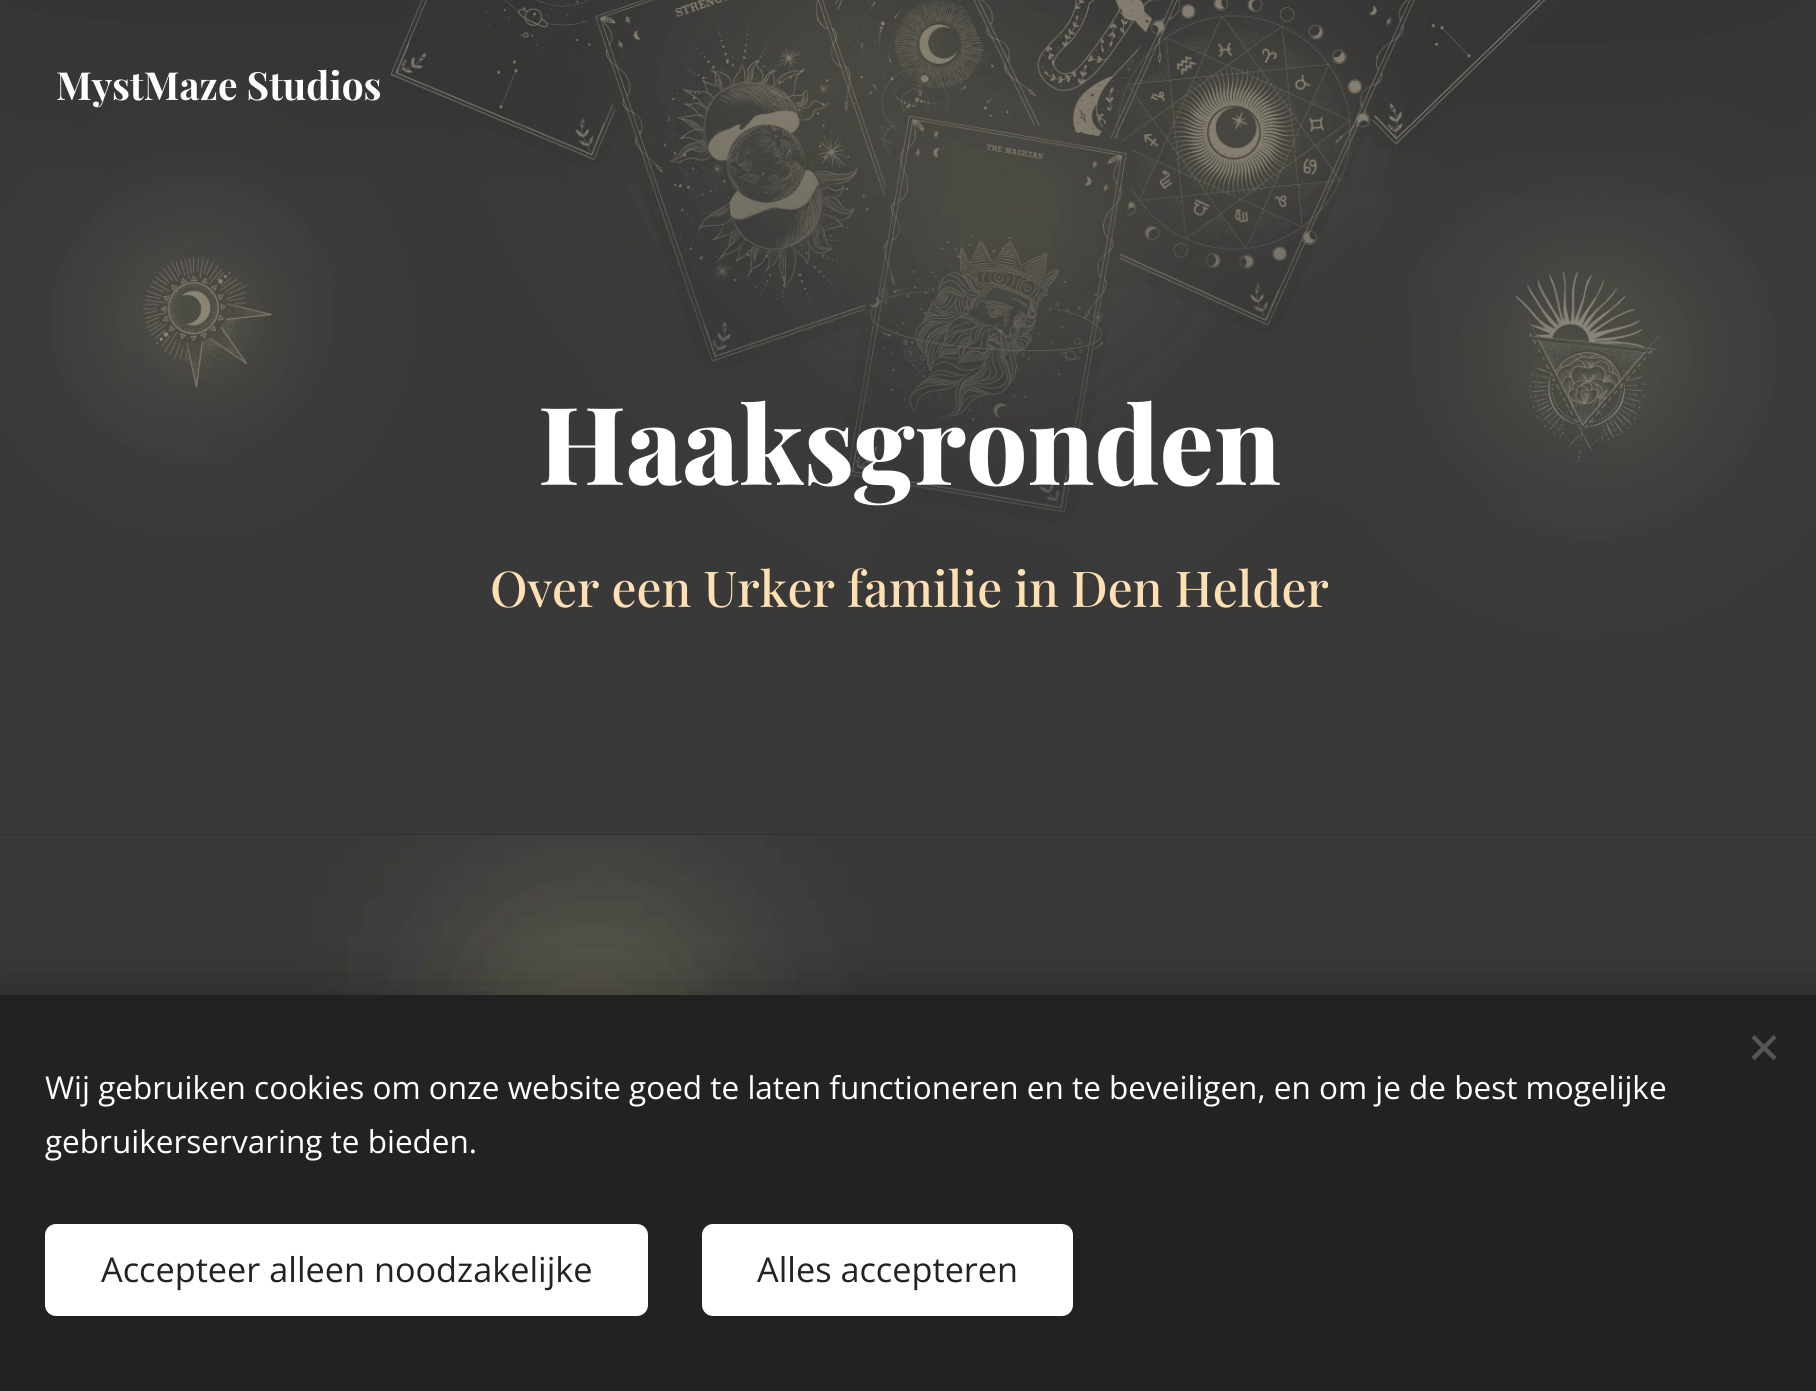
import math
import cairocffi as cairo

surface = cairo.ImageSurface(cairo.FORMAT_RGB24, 1816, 1391)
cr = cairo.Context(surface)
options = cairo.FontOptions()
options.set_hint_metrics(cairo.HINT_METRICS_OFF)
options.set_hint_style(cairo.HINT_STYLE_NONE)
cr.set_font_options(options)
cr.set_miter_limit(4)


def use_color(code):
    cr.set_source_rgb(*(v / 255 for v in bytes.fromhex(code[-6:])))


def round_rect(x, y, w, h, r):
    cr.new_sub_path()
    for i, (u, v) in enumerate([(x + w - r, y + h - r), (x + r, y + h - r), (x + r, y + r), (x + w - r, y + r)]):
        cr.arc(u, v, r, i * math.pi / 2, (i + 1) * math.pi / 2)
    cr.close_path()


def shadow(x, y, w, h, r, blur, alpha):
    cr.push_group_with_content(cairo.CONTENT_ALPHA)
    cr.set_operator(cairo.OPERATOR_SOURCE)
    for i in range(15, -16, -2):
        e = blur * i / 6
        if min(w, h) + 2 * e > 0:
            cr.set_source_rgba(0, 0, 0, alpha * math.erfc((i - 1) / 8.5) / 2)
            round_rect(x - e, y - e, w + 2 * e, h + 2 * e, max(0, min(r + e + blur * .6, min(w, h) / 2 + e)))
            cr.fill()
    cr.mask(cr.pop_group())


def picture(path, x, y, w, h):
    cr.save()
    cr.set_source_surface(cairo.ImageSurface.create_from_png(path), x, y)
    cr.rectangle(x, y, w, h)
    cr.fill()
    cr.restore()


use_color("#272727")
cr.paint()
picture("img1.png", 0, 0, 1816, 835)
cr.select_font_face("Playfair Display", cairo.FONT_SLANT_NORMAL, cairo.FONT_WEIGHT_BOLD)
cr.set_font_size(38.75)
use_color("#ffffff")
cr.move_to(56, 100)
cr.show_text("MystMaze Studios")
cr.select_font_face("Playfair Display ExtraBold")
cr.set_font_size(108)
cr.move_to(538, 485)
cr.show_text("Haaksgronden")
cr.select_font_face("Playfair Display Medium")
cr.set_font_size(49.5)
use_color("#ffe0b2")
cr.move_to(490, 607)
cr.show_text("Over een Urker familie in Den Helder")
picture("img2.png", 0, 835, 1816, 160)
use_color("#000000")
shadow(0, 995, 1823, 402, 0, 28, 0.33)
use_color("#222222")
cr.rectangle(6, 1001, 1810, 390)
cr.fill()
use_color("#555555")
cr.new_path()
cr.move_to(1751.5, 1057)
cr.line_to(1773.5, 1035)
cr.line_to(1776.5, 1038)
cr.line_to(1754.5, 1060.5)
cr.close_path()
cr.fill()
cr.new_path()
cr.move_to(1754.5, 1035)
cr.line_to(1776.5, 1057)
cr.line_to(1773.5, 1060.5)
cr.line_to(1751.5, 1038)
cr.close_path()
cr.fill()
cr.select_font_face("Open Sans")
cr.set_font_size(31.5)
use_color("#ffffff")
cr.move_to(45, 1099)
cr.show_text("Wij gebruiken cookies om onze website goed te laten functioneren en te beveiligen, en om je de best mogelijke")
cr.move_to(45, 1153)
cr.show_text("gebruikerservaring te bieden.")
round_rect(45, 1224, 603, 92, 11)
cr.fill()
cr.set_font_size(34.25)
use_color("#222222")
cr.move_to(101, 1282)
cr.show_text("Accepteer alleen noodzakelijke")
use_color("#ffffff")
round_rect(702, 1224, 371, 92, 11)
cr.fill()
use_color("#222222")
cr.move_to(757, 1282)
cr.show_text("Alles accepteren")
surface.write_to_png("result.png")
